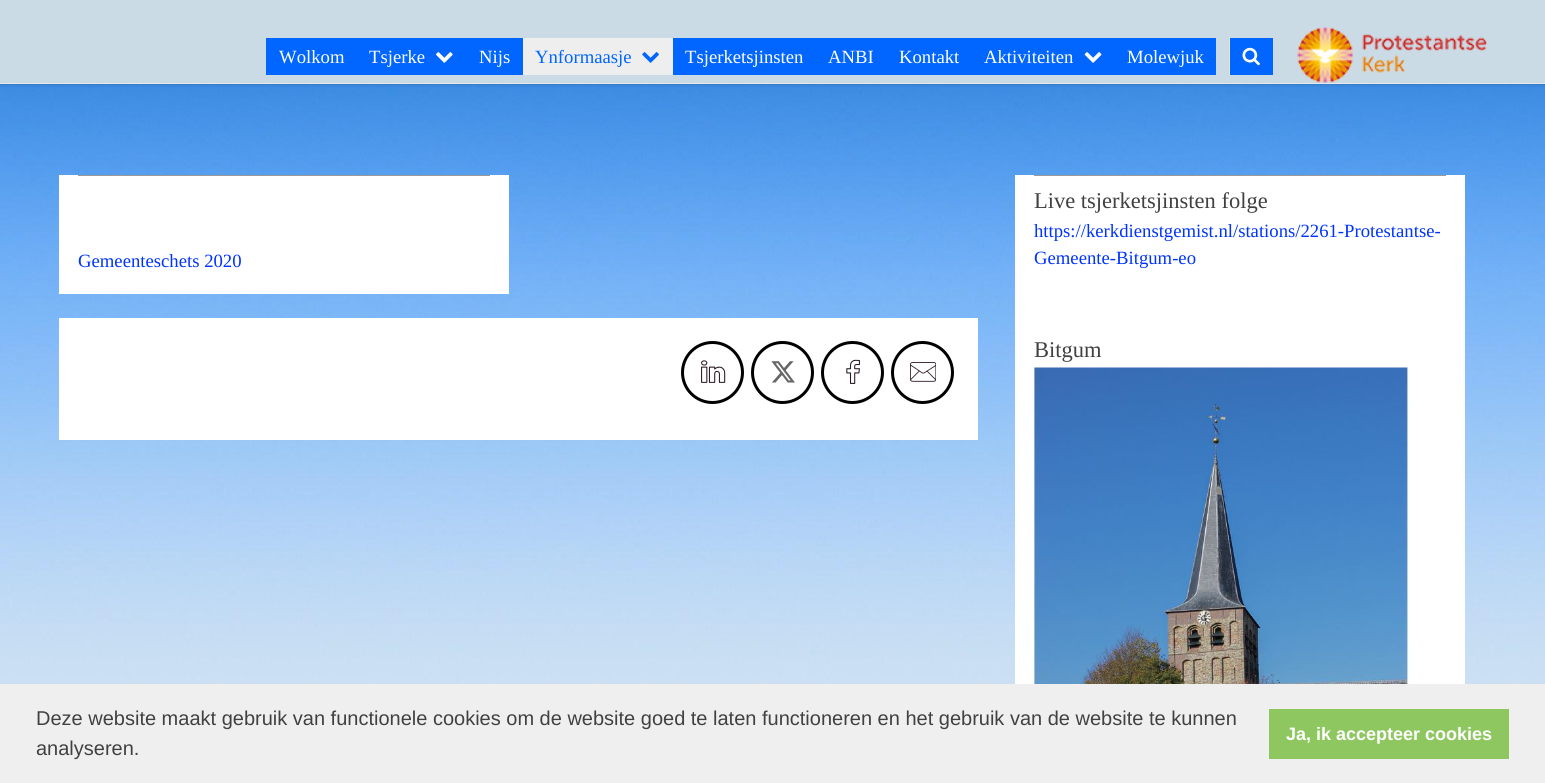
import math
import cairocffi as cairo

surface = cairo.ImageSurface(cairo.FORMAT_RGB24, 1545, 783)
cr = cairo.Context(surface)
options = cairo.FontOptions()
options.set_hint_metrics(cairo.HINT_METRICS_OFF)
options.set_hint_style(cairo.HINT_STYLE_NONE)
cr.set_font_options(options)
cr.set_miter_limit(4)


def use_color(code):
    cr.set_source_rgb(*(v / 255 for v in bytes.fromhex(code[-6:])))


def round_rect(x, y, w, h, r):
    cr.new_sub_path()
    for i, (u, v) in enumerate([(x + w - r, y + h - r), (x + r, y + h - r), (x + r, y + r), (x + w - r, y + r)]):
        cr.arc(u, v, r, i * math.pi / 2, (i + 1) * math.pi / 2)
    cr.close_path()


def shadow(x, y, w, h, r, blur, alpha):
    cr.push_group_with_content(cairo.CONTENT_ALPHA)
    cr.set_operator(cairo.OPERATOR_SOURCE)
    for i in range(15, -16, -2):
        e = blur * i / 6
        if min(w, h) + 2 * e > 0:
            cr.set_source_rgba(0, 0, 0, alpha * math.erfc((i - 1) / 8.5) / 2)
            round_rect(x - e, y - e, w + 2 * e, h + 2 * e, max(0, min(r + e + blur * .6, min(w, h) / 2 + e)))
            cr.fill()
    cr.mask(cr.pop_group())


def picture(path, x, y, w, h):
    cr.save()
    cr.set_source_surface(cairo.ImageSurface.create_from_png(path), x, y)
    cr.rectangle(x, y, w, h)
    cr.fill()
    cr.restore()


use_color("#ffffff")
cr.paint()
picture("img1.png", 0, 84, 1545, 600)
use_color("#000000")
shadow(0, 0, 1545, 84, 0, 2, 0.22)
use_color("#cadbe5")
cr.rectangle(0, 0, 1545, 83)
cr.fill()
use_color("#e7e7e7")
cr.rectangle(0, 83, 1545, 1)
cr.fill()
use_color("#0066ff")
cr.rectangle(266, 38, 257, 37)
cr.fill()
cr.select_font_face("Liberation Serif")
cr.set_font_size(18.7)
use_color("#ffffff")
cr.move_to(279, 63)
cr.show_text("Wolkom")
cr.move_to(369, 63)
cr.show_text("Tsjerke")
picture("img2.png", 436, 52, 17, 11)
cr.move_to(479, 63)
cr.show_text("Nijs")
use_color("#eeeeee")
cr.rectangle(523, 38, 150, 37)
cr.fill()
use_color("#0066ff")
cr.move_to(535, 63)
cr.show_text("Ynformaasje")
picture("img3.png", 642, 52, 17, 11)
cr.rectangle(673, 38, 543, 37)
cr.fill()
use_color("#ffffff")
cr.move_to(685, 63)
cr.show_text("Tsjerketsjinsten")
cr.move_to(828, 63)
cr.show_text("ANBI")
cr.move_to(899, 63)
cr.show_text("Kontakt")
cr.move_to(984, 63)
cr.show_text("Aktiviteiten")
picture("img4.png", 1084, 52, 18, 11)
cr.move_to(1127, 63)
cr.show_text("Molewjuk")
use_color("#0066ff")
cr.rectangle(1230, 38, 43, 37)
cr.fill()
use_color("#e7e7e7")
cr.rectangle(1229, 38, 1, 37)
cr.fill()
picture("img5.png", 1242, 47, 18, 19)
picture("img6.png", 1297, 27, 190, 56)
use_color("#ffffff")
cr.rectangle(59, 175, 450, 119)
cr.fill()
use_color("#999999")
cr.rectangle(78, 175, 412, 1)
cr.fill()
use_color("#0033ff")
cr.move_to(78, 267)
cr.show_text("Gemeenteschets 2020")
use_color("#ffffff")
cr.rectangle(59, 318, 919, 122)
cr.fill()
cr.arc(712.5, 372.5, 30, 0, 2 * math.pi)
use_color("#000000")
cr.set_line_width(3)
cr.stroke()
picture("img7.png", 701, 360, 25, 23)
cr.arc(782.5, 372.5, 30, 0, 2 * math.pi)
cr.stroke()
picture("img8.png", 771, 361, 24, 22)
cr.arc(852.5, 372.5, 30, 0, 2 * math.pi)
cr.stroke()
picture("img9.png", 846, 359, 14, 25)
cr.arc(922.5, 372.5, 30, 0, 2 * math.pi)
cr.stroke()
picture("img10.png", 910, 362, 26, 20)
use_color("#ffffff")
cr.rectangle(1015, 175, 450, 509)
cr.fill()
use_color("#999999")
cr.rectangle(1034, 175, 412, 1)
cr.fill()
cr.set_font_size(22.5)
use_color("#414141")
cr.move_to(1034, 208)
cr.show_text("Live tsjerketsjinsten folge")
cr.set_font_size(18.7)
use_color("#0033ff")
cr.move_to(1034, 237)
cr.show_text("https://kerkdienstgemist.nl/stations/2261-Protestantse-")
cr.move_to(1034, 264)
cr.show_text("Gemeente-Bitgum-eo")
cr.set_font_size(22.5)
use_color("#414141")
cr.move_to(1034, 357)
cr.show_text("Bitgum")
picture("img11.png", 1033, 367, 376, 317)
use_color("#efefef")
cr.rectangle(0, 684, 1545, 99)
cr.fill()
cr.select_font_face("Liberation Sans")
cr.set_font_size(20)
use_color("#414141")
cr.move_to(36, 725)
cr.show_text("Deze website maakt gebruik van functionele cookies om de website goed te laten functioneren en het gebruik van de website te kunnen")
cr.move_to(36, 755)
cr.show_text("analyseren.")
use_color("#8ec760")
cr.rectangle(1269, 709, 240, 50)
cr.fill()
cr.select_font_face("Liberation Sans", cairo.FONT_SLANT_NORMAL, cairo.FONT_WEIGHT_BOLD)
cr.set_font_size(18)
use_color("#ffffff")
cr.move_to(1286, 740)
cr.show_text("Ja, ik accepteer cookies")
surface.write_to_png("result.png")
